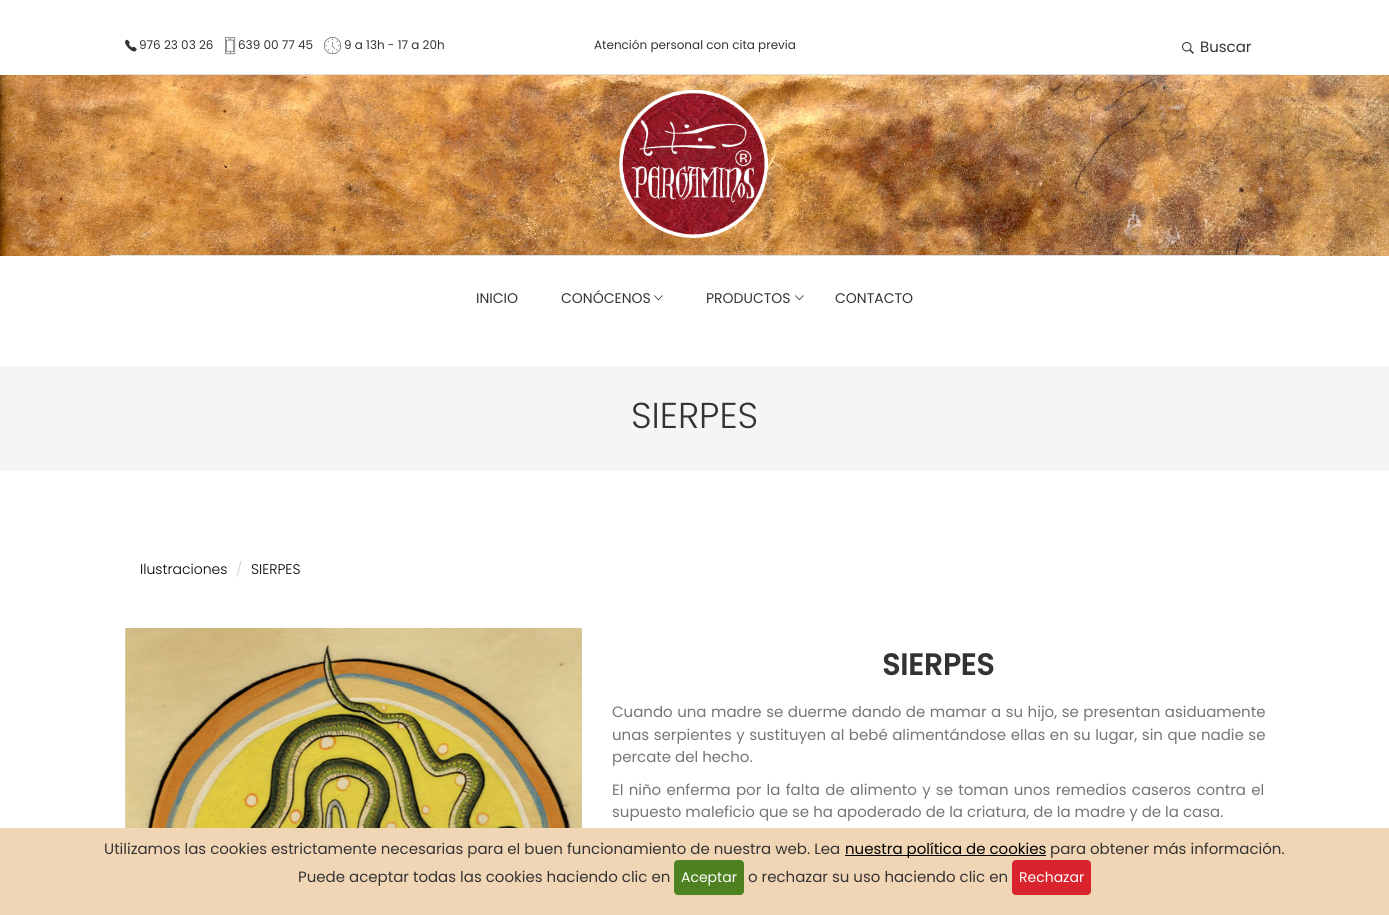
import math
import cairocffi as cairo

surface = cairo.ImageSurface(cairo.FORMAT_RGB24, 1389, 915)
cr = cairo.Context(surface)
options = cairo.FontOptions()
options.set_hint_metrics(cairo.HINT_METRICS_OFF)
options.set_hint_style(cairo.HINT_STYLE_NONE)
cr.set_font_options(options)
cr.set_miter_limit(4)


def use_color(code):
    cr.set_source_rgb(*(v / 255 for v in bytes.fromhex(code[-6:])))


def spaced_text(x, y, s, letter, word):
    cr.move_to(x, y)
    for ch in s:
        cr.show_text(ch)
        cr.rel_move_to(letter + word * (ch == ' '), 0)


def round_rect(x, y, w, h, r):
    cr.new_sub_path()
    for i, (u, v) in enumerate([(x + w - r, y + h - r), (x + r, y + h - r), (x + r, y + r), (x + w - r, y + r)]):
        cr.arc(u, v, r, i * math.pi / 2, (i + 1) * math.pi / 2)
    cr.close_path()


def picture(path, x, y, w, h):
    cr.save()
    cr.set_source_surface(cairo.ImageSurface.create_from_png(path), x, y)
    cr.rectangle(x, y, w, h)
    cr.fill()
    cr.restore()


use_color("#ffffff")
cr.paint()
use_color("#dedede")
cr.rectangle(110, 74, 1170, 1)
cr.fill()
picture("img1.png", 125, 39, 12, 13)
cr.select_font_face("Poppins")
cr.set_font_size(12)
use_color("#333333")
cr.move_to(139, 49)
cr.show_text("976 23 03 26")
picture("img2.png", 225, 37, 11, 18)
cr.move_to(238, 49)
cr.show_text("639 00 77 45")
picture("img3.png", 324, 37, 17, 18)
cr.move_to(344, 49)
cr.show_text("9 a 13h - 17 a 20h")
cr.move_to(594, 49)
cr.show_text("Atención personal con cita previa")
picture("img4.png", 1182, 42, 12, 12)
cr.set_font_size(15)
cr.move_to(1200, 52)
cr.show_text("Buscar")
picture("img5.png", 0, 75, 1389, 181)
use_color("#dedede")
cr.rectangle(110, 255, 1170, 1)
cr.fill()
picture("img6.png", 619, 90, 149, 148)
cr.set_font_size(14)
use_color("#333333")
cr.move_to(476, 303)
cr.show_text("INICIO")
cr.move_to(561, 303)
cr.show_text("CONÓCENOS")
picture("img7.png", 654, 295, 9, 6)
cr.move_to(706, 303)
cr.show_text("PRODUCTOS")
picture("img7.png", 795, 295, 9, 6)
cr.move_to(835, 303)
cr.show_text("CONTACTO")
use_color("#f5f5f5")
cr.rectangle(0, 366, 1389, 105)
cr.fill()
cr.select_font_face("Poppins Light")
cr.set_font_size(36)
use_color("#333333")
cr.move_to(631, 428)
cr.show_text("SIERPES")
cr.set_font_size(14)
use_color("#000000")
cr.move_to(140, 574)
cr.show_text("Ilustraciones")
use_color("#cccccc")
cr.move_to(236, 574)
cr.show_text("/")
use_color("#000000")
cr.move_to(251, 574)
cr.show_text("SIERPES")
picture("img8.png", 125, 628, 457, 200)
cr.select_font_face("Poppins", cairo.FONT_SLANT_NORMAL, cairo.FONT_WEIGHT_BOLD)
cr.set_font_size(30)
use_color("#333333")
cr.move_to(882, 675)
cr.show_text("SIERPES")
cr.select_font_face("Poppins")
cr.set_font_size(15)
use_color("#757575")
spaced_text(612, 717, "Cuando una madre se duerme dando de mamar a su hijo, se presentan asiduamente", 0, 0.5)
spaced_text(612, 740, "unas serpientes y sustituyen al bebé alimentándose ellas en su lugar, sin que nadie se", 0, 0.5)
cr.move_to(612, 762)
cr.show_text("percate del hecho.")
spaced_text(612, 795, "El niño enferma por la falta de alimento y se toman unos remedios caseros contra el", 0, 1.25)
cr.move_to(612, 817)
cr.show_text("supuesto maleficio que se ha apoderado de la criatura, de la madre y de la casa.")
use_color("#f1d6b6")
cr.rectangle(0, 828, 1389, 87)
cr.fill()
use_color("#333333")
cr.move_to(104, 854)
cr.show_text("Utilizamos las cookies estrictamente necesarias para el buen funcionamiento de nuestra web. Lea")
use_color("#000000")
cr.rectangle(845, 855, 201, 1)
cr.fill()
cr.move_to(845, 854)
cr.show_text("nuestra política de cookies")
use_color("#333333")
cr.move_to(1050, 854)
cr.show_text("para obtener más información.")
cr.move_to(298, 882)
cr.show_text("Puede aceptar todas las cookies haciendo clic en")
use_color("#4e8221")
round_rect(674, 860, 70, 35, 4)
cr.fill()
cr.set_font_size(14)
use_color("#ffffff")
cr.move_to(681, 882)
cr.show_text("Aceptar")
cr.set_font_size(15)
use_color("#333333")
cr.move_to(748, 882)
cr.show_text("o rechazar su uso haciendo clic en")
use_color("#d9232d")
round_rect(1012, 860, 79, 35, 4)
cr.fill()
cr.set_font_size(14)
use_color("#ffffff")
cr.move_to(1019, 882)
cr.show_text("Rechazar")
surface.write_to_png("result.png")
